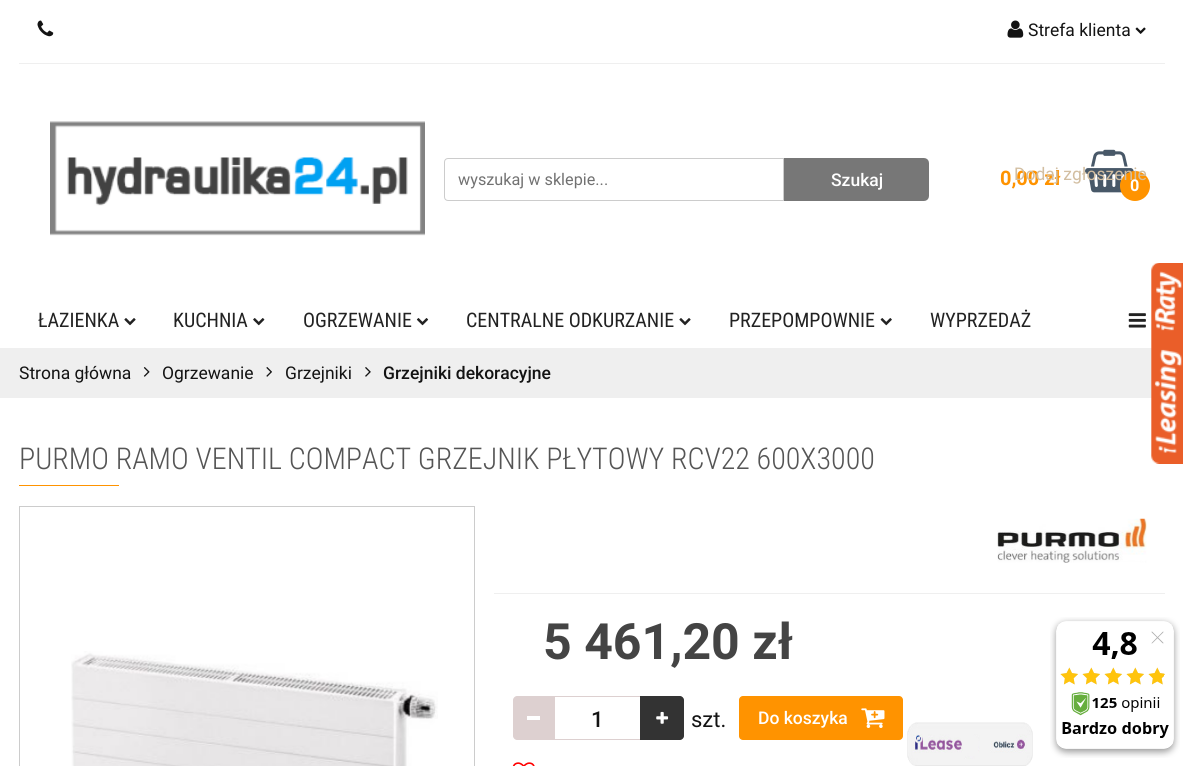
import math
import cairocffi as cairo

surface = cairo.ImageSurface(cairo.FORMAT_RGB24, 1183, 766)
cr = cairo.Context(surface)
options = cairo.FontOptions()
options.set_hint_metrics(cairo.HINT_METRICS_OFF)
options.set_hint_style(cairo.HINT_STYLE_NONE)
cr.set_font_options(options)
cr.set_miter_limit(4)


def use_color(code):
    cr.set_source_rgb(*(v / 255 for v in bytes.fromhex(code[-6:])))


def round_rect(x, y, w, h, r):
    cr.new_sub_path()
    for i, (u, v) in enumerate([(x + w - r, y + h - r), (x + r, y + h - r), (x + r, y + r), (x + w - r, y + r)]):
        cr.arc(u, v, r, i * math.pi / 2, (i + 1) * math.pi / 2)
    cr.close_path()


def picture(path, x, y, w, h):
    cr.save()
    cr.set_source_surface(cairo.ImageSurface.create_from_png(path), x, y)
    cr.rectangle(x, y, w, h)
    cr.fill()
    cr.restore()


use_color("#ffffff")
cr.paint()
use_color("#efefef")
cr.rectangle(19, 63, 1146, 1)
cr.fill()
picture("img1.png", 37, 20, 17, 17)
picture("img2.png", 1007, 20, 17, 18)
cr.select_font_face("Roboto")
cr.set_font_size(17.5)
use_color("#131313")
cr.move_to(1028, 36)
cr.show_text("Strefa klienta")
picture("img3.png", 1135, 27, 11, 7)
cr.select_font_face("Roboto", cairo.FONT_SLANT_NORMAL, cairo.FONT_WEIGHT_BOLD)
cr.set_font_size(20)
use_color("#ff9300")
cr.move_to(1000, 185)
cr.show_text("0,00 zł")
picture("img5.png", 1085, 149, 49, 44)
cr.arc(1135, 186, 15, 0, 2 * math.pi)
cr.fill()
cr.select_font_face("Roboto")
cr.set_font_size(17.5)
use_color("#d2bea1")
cr.move_to(1014, 180)
cr.show_text("Dodaj zgłoszenie")
picture("img4.png", 50, 121, 375, 115)
cr.new_path()
cr.move_to(448, 158.5)
cr.line_to(783.5, 158.5)
cr.line_to(783.5, 200.5)
cr.line_to(448, 200.5)
cr.curve_to(446, 200.5, 444.5, 199, 444.5, 197)
cr.line_to(444.5, 162)
cr.curve_to(444.5, 160, 446, 158.5, 448, 158.5)
cr.close_path()
use_color("#cccccc")
cr.set_line_width(1)
cr.stroke()
cr.set_font_size(16.25)
use_color("#717171")
cr.move_to(458, 185)
cr.show_text("wyszukaj w sklepie...")
use_color("#777777")
cr.new_path()
cr.move_to(785.5, 159.5)
cr.line_to(924, 159.5)
cr.curve_to(926, 159.5, 927.5, 161, 927.5, 163)
cr.line_to(927.5, 196)
cr.curve_to(927.5, 198, 926, 199.5, 924, 199.5)
cr.line_to(785.5, 199.5)
cr.close_path()
cr.fill_preserve()
cr.set_line_width(3)
cr.stroke()
cr.select_font_face("Roboto Medium")
cr.set_font_size(17.5)
use_color("#ffffff")
cr.move_to(831, 186)
cr.show_text("Szukaj")
cr.select_font_face("Roboto", cairo.FONT_SLANT_NORMAL, cairo.FONT_WEIGHT_BOLD)
cr.set_font_size(16.25)
cr.move_to(1130, 191)
cr.show_text("0")
cr.select_font_face("Roboto Condensed")
cr.set_font_size(20)
use_color("#222222")
cr.move_to(38, 327)
cr.show_text("ŁAZIENKA")
picture("img6.png", 124, 318, 12, 8)
cr.move_to(173, 327)
cr.show_text("KUCHNIA")
picture("img7.png", 253, 318, 12, 8)
cr.move_to(303, 327)
cr.show_text("OGRZEWANIE")
picture("img8.png", 416, 318, 13, 8)
cr.move_to(466, 327)
cr.show_text("CENTRALNE ODKURZANIE")
picture("img6.png", 679, 318, 12, 8)
cr.move_to(729, 327)
cr.show_text("PRZEPOMPOWNIE")
picture("img9.png", 880, 318, 12, 8)
cr.move_to(930, 327)
cr.show_text("WYPRZEDAŻ")
picture("img10.png", 1128, 313, 18, 15)
use_color("#efefef")
cr.rectangle(0, 348, 1152, 50)
cr.fill()
cr.select_font_face("Roboto")
cr.set_font_size(17.5)
use_color("#131313")
cr.move_to(19, 379)
cr.show_text("Strona główna")
picture("img11.png", 143, 367, 7, 10)
cr.move_to(162, 379)
cr.show_text("Ogrzewanie")
picture("img12.png", 266, 367, 6, 10)
cr.move_to(285, 379)
cr.show_text("Grzejniki")
picture("img13.png", 365, 367, 6, 10)
cr.select_font_face("Roboto Medium")
cr.move_to(383, 379)
cr.show_text("Grzejniki dekoracyjne")
cr.select_font_face("Roboto Condensed Light")
cr.set_font_size(30)
use_color("#555555")
cr.move_to(19, 469)
cr.show_text("PURMO RAMO VENTIL COMPACT GRZEJNIK PŁYTOWY RCV22 600X3000")
use_color("#ff9300")
cr.rectangle(19, 485, 100, 1)
cr.fill()
cr.rectangle(19.5, 506.5, 455, 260)
use_color("#cccccc")
cr.set_line_width(1)
cr.stroke()
picture("img14.png", 71, 651, 367, 115)
use_color("#efefef")
cr.rectangle(494, 593, 671, 1)
cr.fill()
picture("img15.png", 997, 518, 150, 45)
cr.select_font_face("Roboto", cairo.FONT_SLANT_NORMAL, cairo.FONT_WEIGHT_BOLD)
cr.set_font_size(50)
use_color("#444444")
cr.move_to(543, 659)
cr.show_text("5 461,20 zł")
use_color("#ddd0d0")
cr.new_path()
cr.move_to(517, 696)
cr.line_to(555, 696)
cr.line_to(555, 740)
cr.line_to(517, 740)
cr.curve_to(515, 740, 513, 738, 513, 736)
cr.line_to(513, 700)
cr.curve_to(513, 698, 515, 696, 517, 696)
cr.close_path()
cr.fill()
cr.rectangle(555, 696, 85, 1)
cr.fill()
use_color("#ffffff")
cr.rectangle(527, 716, 13, 4)
cr.fill()
use_color("#ddd0d0")
cr.rectangle(555, 739, 85, 1)
cr.fill()
use_color("#333333")
cr.new_path()
cr.move_to(640, 696)
cr.line_to(680, 696)
cr.curve_to(682, 696, 684, 698, 684, 700)
cr.line_to(684, 736)
cr.curve_to(684, 738, 682, 740, 680, 740)
cr.line_to(640, 740)
cr.close_path()
cr.fill()
picture("img16.png", 656, 711, 13, 13)
cr.select_font_face("Roboto Medium")
cr.set_font_size(22)
use_color("#131313")
cr.move_to(591, 727)
cr.show_text("1")
cr.select_font_face("Roboto")
cr.move_to(691, 727)
cr.show_text("szt.")
use_color("#ff9300")
round_rect(739, 696, 164, 44, 4)
cr.fill()
cr.select_font_face("Roboto Medium")
cr.set_font_size(17.5)
use_color("#ffffff")
cr.move_to(758, 724)
cr.show_text("Do koszyka")
picture("img17.png", 861, 708, 24, 20)
picture("img18.png", 512, 762, 23, 4)
picture("img19.png", 907, 722, 126, 44)
picture("img20.png", 1151, 263, 32, 201)
picture("img21.png", 1050, 617, 130, 141)
surface.write_to_png("result.png")
